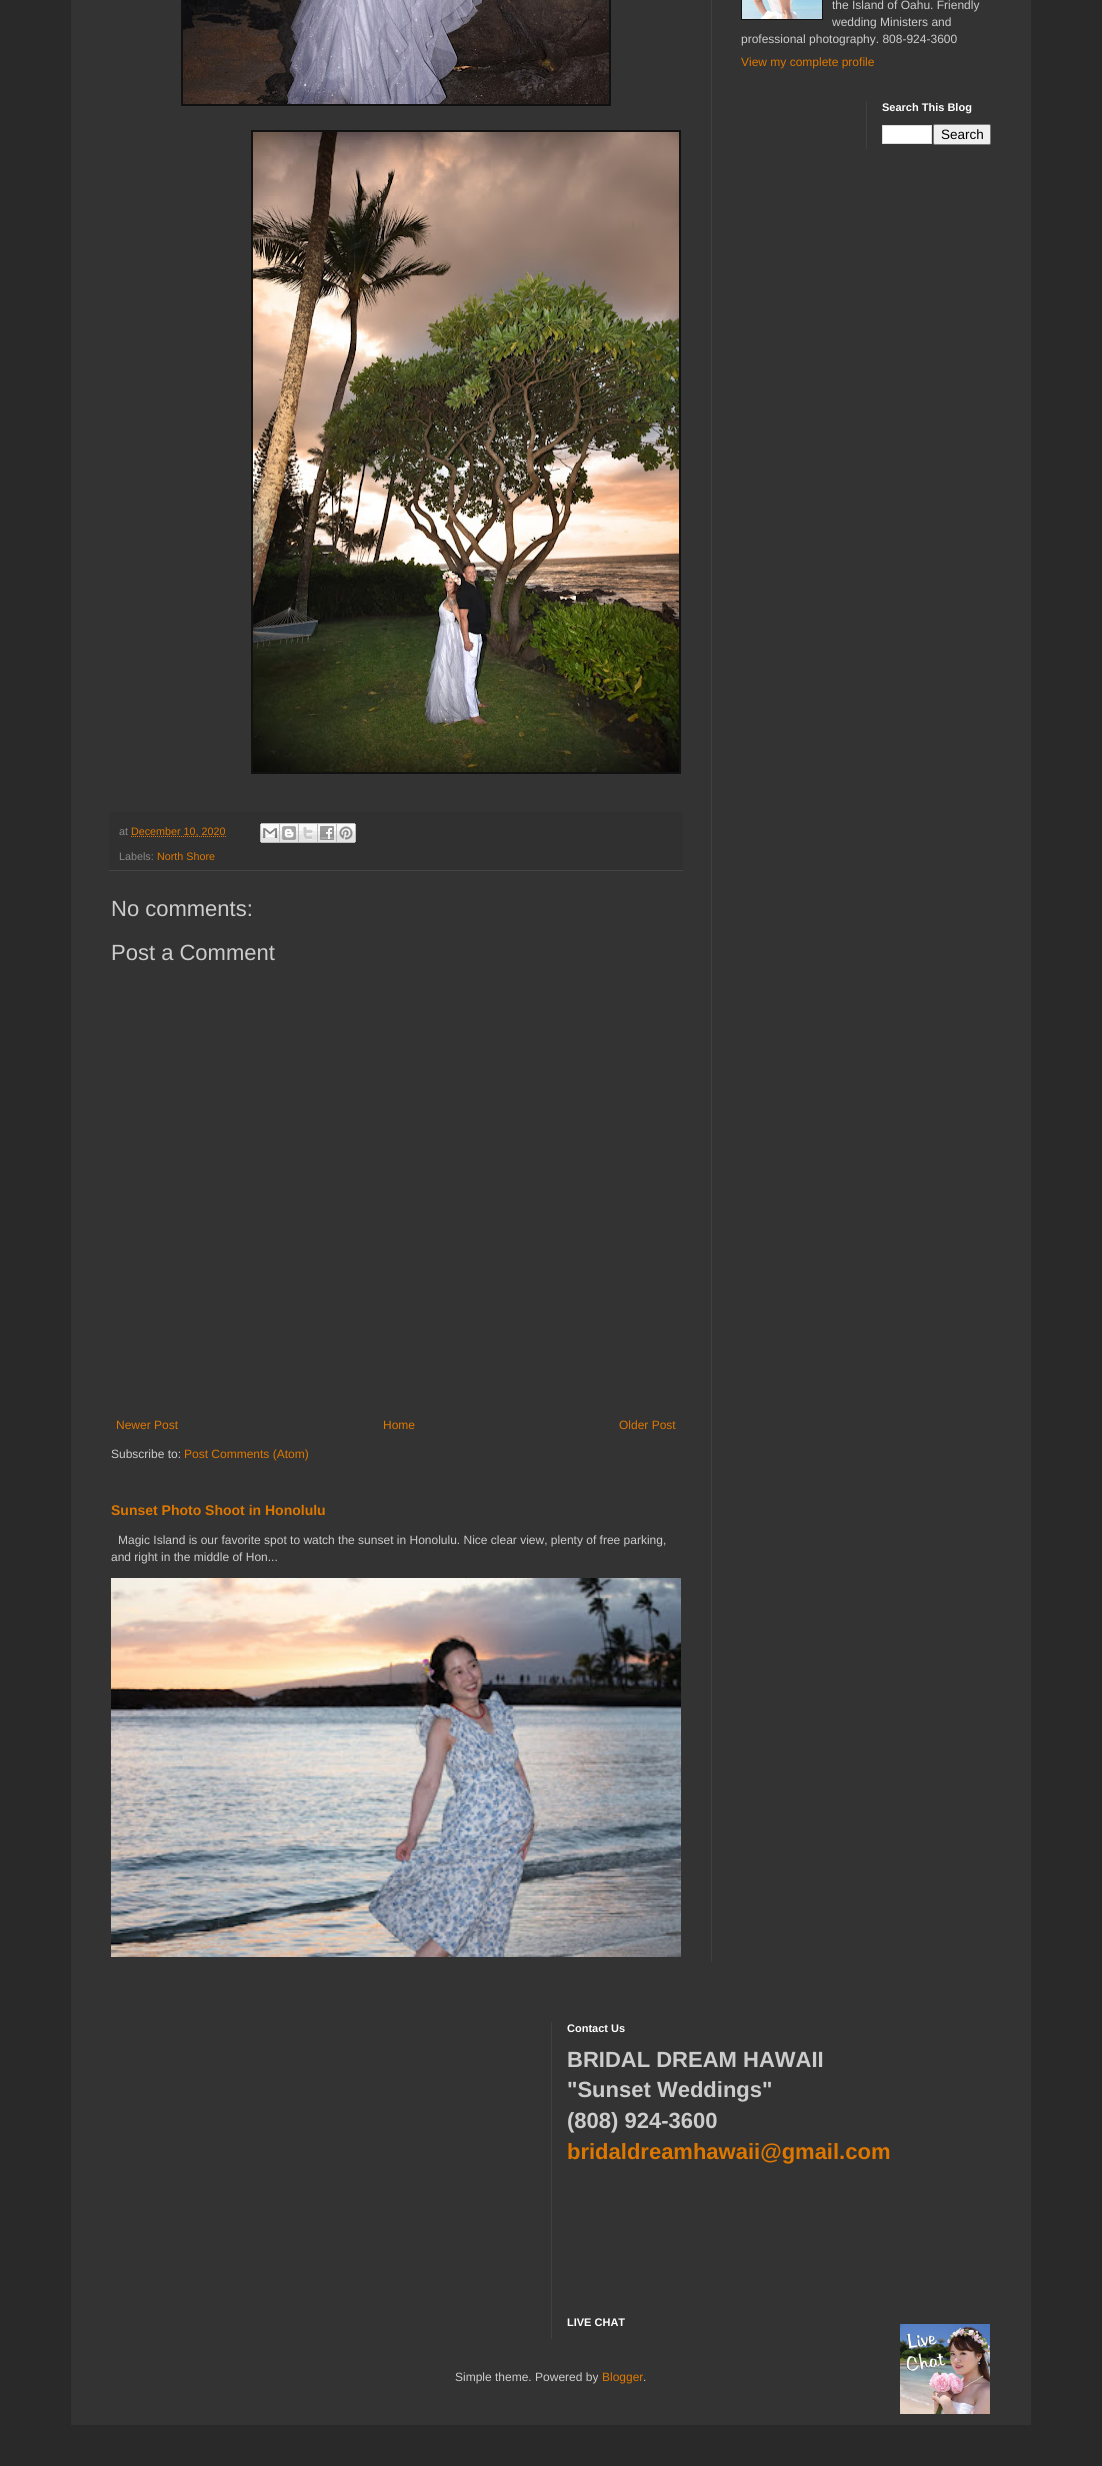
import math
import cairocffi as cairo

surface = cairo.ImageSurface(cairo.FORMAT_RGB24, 1102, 2466)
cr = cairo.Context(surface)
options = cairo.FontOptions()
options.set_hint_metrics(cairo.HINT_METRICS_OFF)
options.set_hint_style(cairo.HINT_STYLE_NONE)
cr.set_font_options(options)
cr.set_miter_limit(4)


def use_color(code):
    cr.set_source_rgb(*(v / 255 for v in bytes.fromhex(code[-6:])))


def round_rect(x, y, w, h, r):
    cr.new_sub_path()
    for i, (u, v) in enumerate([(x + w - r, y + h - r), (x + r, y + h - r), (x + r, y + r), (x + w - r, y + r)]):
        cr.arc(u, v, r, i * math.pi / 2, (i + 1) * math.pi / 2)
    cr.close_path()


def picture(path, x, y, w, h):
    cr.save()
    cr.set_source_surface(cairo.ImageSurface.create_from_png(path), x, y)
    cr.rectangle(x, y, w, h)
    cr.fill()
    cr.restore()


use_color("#292929")
cr.paint()
use_color("#333333")
cr.rectangle(71, 0, 960, 2425)
cr.fill()
cr.select_font_face("Liberation Sans")
cr.set_font_size(12)
use_color("#cccccc")
cr.move_to(832, 9)
cr.show_text("the Island of Oahu. Friendly")
cr.move_to(832, 26)
cr.show_text("wedding Ministers and")
cr.move_to(741, 43)
cr.show_text("professional photography. 808-924-3600")
use_color("#111111")
cr.rectangle(741, 0, 82, 20)
cr.fill()
picture("img1.png", 742, 0, 80, 19)
use_color("#dd7700")
cr.move_to(741, 66)
cr.show_text("View my complete profile")
use_color("#404040")
cr.rectangle(866, 101, 1, 48)
cr.fill()
cr.select_font_face("Liberation Sans", cairo.FONT_SLANT_NORMAL, cairo.FONT_WEIGHT_BOLD)
cr.set_font_size(11)
use_color("#ffffff")
cr.move_to(882, 111)
cr.show_text("Search This Blog")
cr.rectangle(882.5, 125.5, 49, 18)
cr.fill_preserve()
use_color("#dddddd")
cr.set_line_width(1)
cr.stroke()
use_color("#efefef")
round_rect(933.5, 124.5, 57, 20, 1.5)
cr.fill_preserve()
use_color("#767676")
cr.stroke()
cr.select_font_face("Liberation Sans")
cr.set_font_size(13.5)
use_color("#000000")
cr.move_to(941, 139)
cr.show_text("Search")
use_color("#111111")
cr.rectangle(181, 0, 430, 106)
cr.fill()
picture("img2.png", 183, 0, 426, 104)
cr.rectangle(251, 130, 430, 644)
cr.fill()
picture("img3.png", 253, 132, 426, 640)
use_color("#303030")
cr.rectangle(109, 812, 574, 58)
cr.fill()
use_color("#444444")
cr.rectangle(109, 870, 574, 1)
cr.fill()
cr.set_font_size(10.75)
use_color("#888888")
cr.move_to(119, 835)
cr.show_text("at")
cr.new_path()
cr.move_to(131, 836.5)
cr.line_to(226, 836.5)
use_color("#dd7700")
cr.set_dash([1, 1])
cr.stroke()
cr.move_to(131, 835)
cr.show_text("December 10, 2020")
picture("img4.png", 260, 823, 20, 20)
picture("img5.png", 280, 823, 19, 20)
picture("img6.png", 299, 823, 19, 20)
picture("img7.png", 318, 823, 19, 20)
picture("img8.png", 337, 823, 19, 20)
use_color("#888888")
cr.move_to(119, 860)
cr.show_text("Labels:")
use_color("#dd7700")
cr.move_to(157, 860)
cr.show_text("North Shore")
cr.set_font_size(22)
use_color("#cccccc")
cr.move_to(111, 916)
cr.show_text("No comments:")
cr.move_to(111, 960)
cr.show_text("Post a Comment")
cr.set_font_size(12)
use_color("#dd7700")
cr.move_to(116, 1429)
cr.show_text("Newer Post")
cr.move_to(383, 1429)
cr.show_text("Home")
cr.move_to(619, 1429)
cr.show_text("Older Post")
use_color("#cccccc")
cr.move_to(111, 1458)
cr.show_text("Subscribe to:")
use_color("#dd7700")
cr.move_to(184, 1458)
cr.show_text("Post Comments (Atom)")
cr.select_font_face("Liberation Sans", cairo.FONT_SLANT_NORMAL, cairo.FONT_WEIGHT_BOLD)
cr.set_font_size(14)
cr.move_to(111, 1515)
cr.show_text("Sunset Photo Shoot in Honolulu")
cr.select_font_face("Liberation Sans")
cr.set_font_size(12)
use_color("#cccccc")
cr.move_to(118, 1544)
cr.show_text("Magic Island is our favorite spot to watch the sunset in Honolulu. Nice clear view, plenty of free parking,")
cr.move_to(111, 1561)
cr.show_text("and right in the middle of Hon...")
picture("img9.png", 111, 1578, 570, 379)
use_color("#404040")
cr.rectangle(711, 0, 1, 1962)
cr.fill()
cr.rectangle(551, 2022, 1, 317)
cr.fill()
cr.select_font_face("Liberation Sans", cairo.FONT_SLANT_NORMAL, cairo.FONT_WEIGHT_BOLD)
cr.set_font_size(11)
use_color("#ffffff")
cr.move_to(567, 2032)
cr.show_text("Contact Us")
cr.set_font_size(22)
use_color("#cccccc")
cr.move_to(567, 2067)
cr.show_text("BRIDAL DREAM HAWAII")
cr.move_to(567, 2097)
cr.show_text("\"Sunset Weddings\"")
cr.move_to(567, 2128)
cr.show_text("(808) 924-3600")
use_color("#dd7700")
cr.move_to(567, 2159)
cr.show_text("bridaldreamhawaii@gmail.com")
cr.set_font_size(11)
use_color("#ffffff")
cr.move_to(567, 2326)
cr.show_text("LIVE CHAT")
cr.select_font_face("Liberation Sans")
cr.set_font_size(12)
use_color("#cccccc")
cr.move_to(455, 2381)
cr.show_text("Simple theme. Powered by")
use_color("#dd7700")
cr.move_to(602, 2381)
cr.show_text("Blogger")
use_color("#cccccc")
cr.move_to(643, 2381)
cr.show_text(".")
picture("img10.png", 900, 2324, 90, 90)
surface.write_to_png("result.png")
